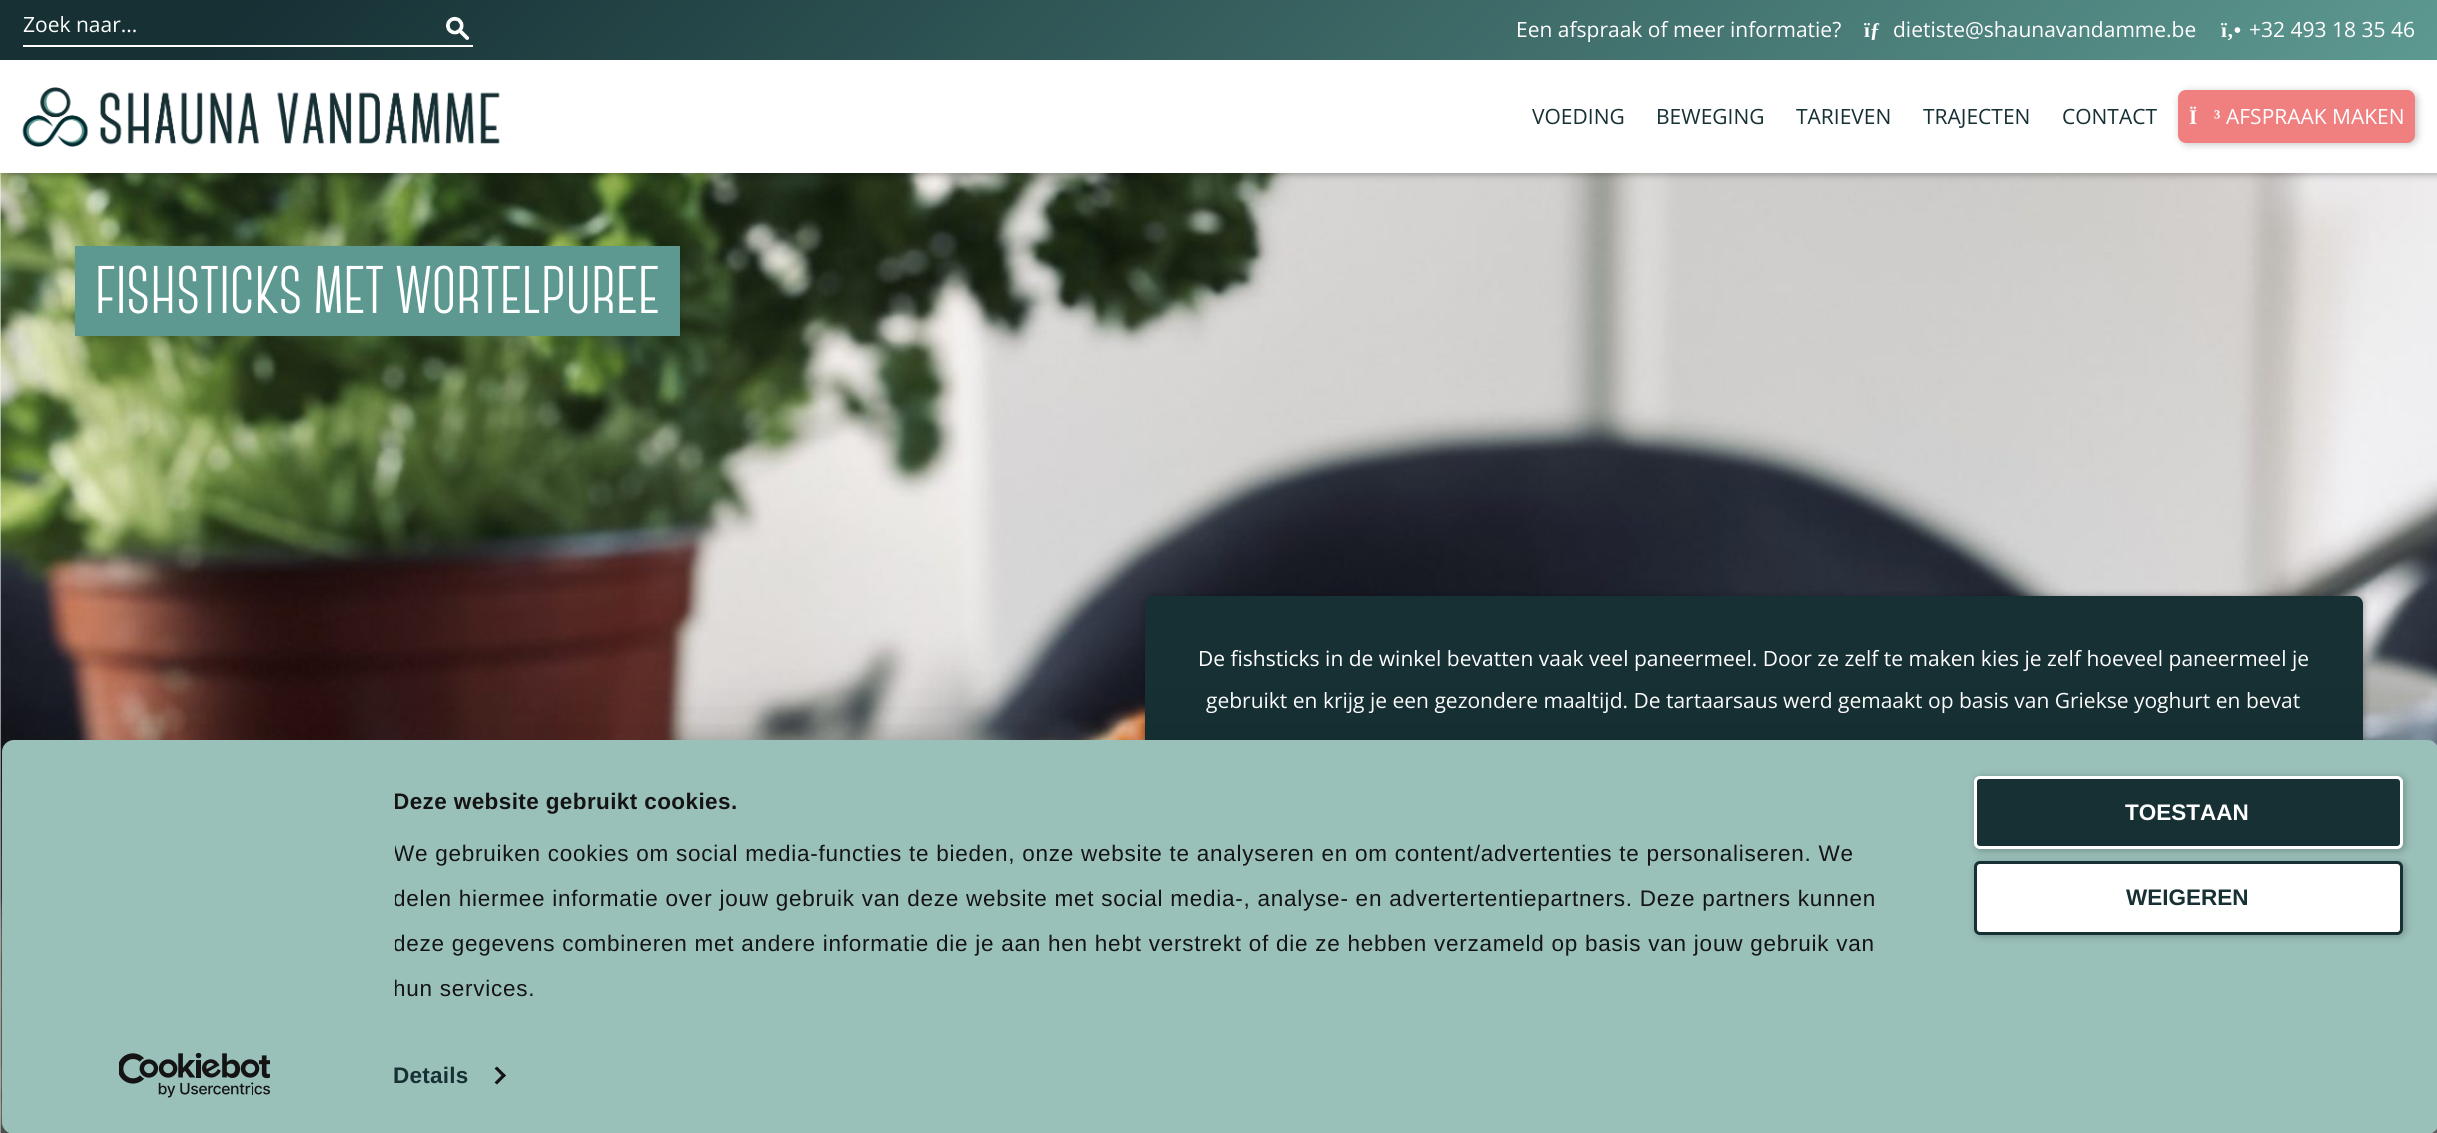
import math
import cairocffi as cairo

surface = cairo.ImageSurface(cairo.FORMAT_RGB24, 2437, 1133)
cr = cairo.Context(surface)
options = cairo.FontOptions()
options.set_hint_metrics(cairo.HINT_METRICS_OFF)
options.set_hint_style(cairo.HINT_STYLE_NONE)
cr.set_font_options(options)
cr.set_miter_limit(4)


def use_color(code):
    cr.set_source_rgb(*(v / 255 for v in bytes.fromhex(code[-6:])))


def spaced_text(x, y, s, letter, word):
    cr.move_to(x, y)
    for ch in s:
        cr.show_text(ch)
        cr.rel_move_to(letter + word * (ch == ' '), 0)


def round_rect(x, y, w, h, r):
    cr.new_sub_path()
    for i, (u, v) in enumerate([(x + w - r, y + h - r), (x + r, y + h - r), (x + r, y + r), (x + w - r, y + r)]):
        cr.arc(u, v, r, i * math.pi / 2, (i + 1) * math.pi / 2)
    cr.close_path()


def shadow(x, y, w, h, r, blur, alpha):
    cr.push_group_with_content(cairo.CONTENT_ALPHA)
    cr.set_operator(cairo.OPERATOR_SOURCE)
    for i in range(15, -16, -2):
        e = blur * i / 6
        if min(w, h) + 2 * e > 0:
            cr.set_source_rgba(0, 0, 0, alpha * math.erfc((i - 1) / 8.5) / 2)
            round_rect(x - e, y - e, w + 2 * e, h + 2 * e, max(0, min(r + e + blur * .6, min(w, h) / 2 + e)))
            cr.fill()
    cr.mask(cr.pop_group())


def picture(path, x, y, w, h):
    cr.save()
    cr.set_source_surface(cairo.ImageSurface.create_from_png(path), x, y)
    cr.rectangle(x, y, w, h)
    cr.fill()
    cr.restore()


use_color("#fafafa")
cr.paint()
picture("img3.png", 0, 173, 2437, 960)
use_color("#000000")
shadow(2, 62, 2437, 112, 0, 4, 0.33)
gradient = cairo.LinearGradient(1843, 654, 594, -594)
gradient.add_color_stop_rgba(0, 0.365, 0.6, 0.569, 1)
gradient.add_color_stop_rgba(0.9, 0.086, 0.188, 0.204, 1)
cr.set_source(gradient)
cr.rectangle(0, 0, 2437, 60)
cr.fill()
use_color("#ffffff")
cr.rectangle(23, 45, 450, 2)
cr.fill()
cr.select_font_face("Open Sans")
cr.set_font_size(21)
cr.move_to(23, 32)
cr.show_text("Zoek naar...")
picture("img1.png", 446, 16, 24, 24)
cr.move_to(1516, 37)
cr.show_text("Een afspraak of meer informatie?")
cr.select_font_face("Liberation Serif", cairo.FONT_SLANT_NORMAL, cairo.FONT_WEIGHT_BOLD)
cr.move_to(1864, 37)
cr.show_text("ïƒ")
cr.select_font_face("Open Sans")
cr.move_to(1893, 37)
cr.show_text("dietiste@shaunavandamme.be")
cr.select_font_face("Liberation Serif", cairo.FONT_SLANT_NORMAL, cairo.FONT_WEIGHT_BOLD)
cr.move_to(2221, 37)
cr.show_text("ï‚•")
cr.select_font_face("Open Sans")
cr.move_to(2249, 37)
cr.show_text("+32 493 18 35 46")
cr.rectangle(0, 60, 2437, 113)
cr.fill()
picture("img2.png", 22, 87, 478, 60)
use_color("#163034")
cr.move_to(1532, 124)
cr.show_text("VOEDING")
cr.move_to(1656, 124)
cr.show_text("BEWEGING")
cr.move_to(1796, 124)
cr.show_text("TARIEVEN")
cr.move_to(1923, 124)
cr.show_text("TRAJECTEN")
cr.move_to(2062, 124)
cr.show_text("CONTACT")
use_color("#000000")
shadow(2180, 92, 237, 52, 8, 4, 0.25)
use_color("#f08080")
round_rect(2178, 90, 237, 53, 8)
cr.fill()
cr.select_font_face("Liberation Serif", cairo.FONT_SLANT_NORMAL, cairo.FONT_WEIGHT_BOLD)
use_color("#ffffff")
cr.move_to(2189, 124)
cr.show_text("Ï")
cr.move_to(2214, 124)
cr.show_text("³")
cr.select_font_face("Open Sans")
cr.move_to(2226, 124)
cr.show_text("AFSPRAAK MAKEN")
use_color("#5d9991")
cr.rectangle(75, 246, 605, 90)
cr.fill()
cr.select_font_face("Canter", cairo.FONT_SLANT_NORMAL, cairo.FONT_WEIGHT_BOLD)
cr.set_font_size(67.25)
use_color("#ffffff")
cr.move_to(95, 313)
cr.show_text("FISHSTICKS MET WORTELPUREE")
use_color("#000000")
shadow(1146, 597, 1218, 210, 8, 4, 0.33)
use_color("#163034")
round_rect(1145, 596, 1218, 210, 8)
cr.fill()
cr.select_font_face("Open Sans")
cr.set_font_size(21)
use_color("#ffffff")
cr.move_to(1198, 666)
cr.show_text("De fishsticks in de winkel bevatten vaak veel paneermeel. Door ze zelf te maken kies je zelf hoeveel paneermeel je")
cr.move_to(1206, 708)
cr.show_text("gebruikt en krijg je een gezondere maaltijd. De tartaarsaus werd gemaakt op basis van Griekse yoghurt en bevat")
cr.save()
cr.set_fill_rule(cairo.FILL_RULE_EVEN_ODD)
cr.new_path()
cr.move_to(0, 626)
cr.line_to(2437, 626)
cr.line_to(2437, 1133)
cr.line_to(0, 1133)
cr.close_path()
cr.move_to(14, 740)
cr.line_to(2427, 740)
cr.curve_to(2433.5, 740, 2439, 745.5, 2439, 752)
cr.line_to(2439, 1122)
cr.curve_to(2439, 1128.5, 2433.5, 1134, 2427, 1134)
cr.line_to(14, 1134)
cr.curve_to(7.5, 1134, 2, 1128.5, 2, 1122)
cr.line_to(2, 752)
cr.curve_to(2, 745.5, 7.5, 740, 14, 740)
cr.close_path()
cr.clip()
use_color("#000000")
shadow(2, 785, 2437, 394, 12, 52.5, 0.3)
cr.restore()
use_color("#9ac0ba")
round_rect(2, 740, 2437, 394, 12)
cr.fill()
cr.save()
cr.rectangle(395, 785, 1536, 226)
cr.clip()
cr.select_font_face("Liberation Sans", cairo.FONT_SLANT_NORMAL, cairo.FONT_WEIGHT_BOLD)
cr.set_font_size(22.5)
use_color("#141414")
spaced_text(393, 809, "Deze website gebruikt cookies.", 0.4, 0)
cr.select_font_face("Liberation Sans")
spaced_text(393, 861, "We gebruiken cookies om social media-functies te bieden, onze website te analyseren en om content/advertenties te personaliseren. We", 0.75, 0)
spaced_text(393, 906, "delen hiermee informatie over jouw gebruik van deze website met social media-, analyse- en advertertentiepartners. Deze partners kunnen", 0.75, 0)
spaced_text(393, 951, "deze gegevens combineren met andere informatie die je aan hen hebt verstrekt of die ze hebben verzameld op basis van jouw gebruik van", 0.75, 0)
spaced_text(393, 996, "hun services.", 0.75, 0)
cr.restore()
cr.select_font_face("Liberation Sans", cairo.FONT_SLANT_NORMAL, cairo.FONT_WEIGHT_BOLD)
cr.set_font_size(22.5)
use_color("#163034")
spaced_text(393, 1083, "Details", 0.25, 0)
use_color("#141414")
cr.new_path()
cr.move_to(497, 1066.5)
cr.line_to(506, 1075.5)
cr.line_to(503.5, 1077.5)
cr.line_to(494.5, 1068.5)
cr.close_path()
cr.fill()
cr.new_path()
cr.move_to(503.5, 1073.5)
cr.line_to(506, 1075.5)
cr.line_to(497, 1084.5)
cr.line_to(494.5, 1082.5)
cr.close_path()
cr.fill()
use_color("#000000")
shadow(1976, 777, 429, 74, 6, 4, 0.25)
use_color("#163034")
round_rect(1975.5, 777.5, 426, 70, 4.5)
cr.fill_preserve()
use_color("#ffffff")
cr.set_line_width(3)
cr.stroke()
cr.move_to(2125, 820)
cr.show_text("TOESTAAN")
use_color("#000000")
shadow(1976, 863, 429, 73, 6, 4, 0.25)
use_color("#ffffff")
round_rect(1975.5, 862.5, 426, 71, 4.5)
cr.fill_preserve()
use_color("#163034")
cr.stroke()
cr.move_to(2126, 905)
cr.show_text("WEIGEREN")
picture("img4.png", 119, 1053, 151, 45)
surface.write_to_png("result.png")
